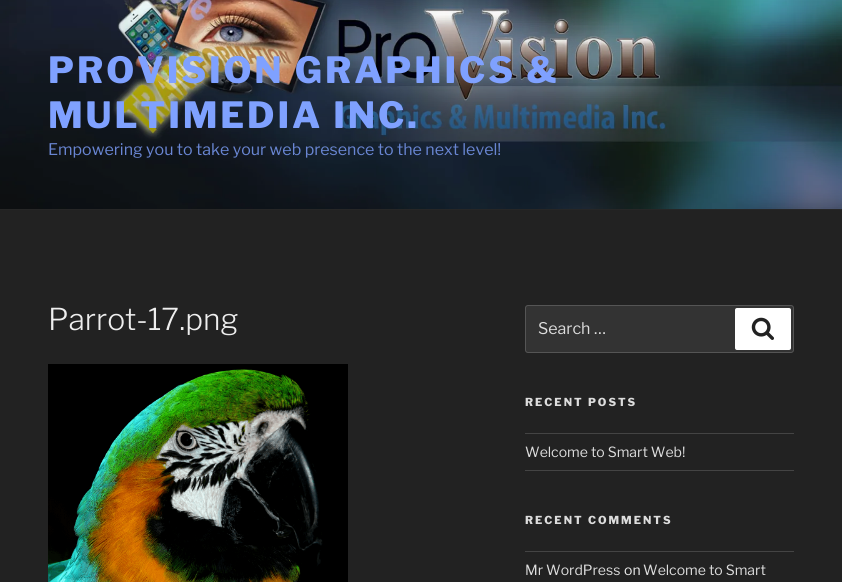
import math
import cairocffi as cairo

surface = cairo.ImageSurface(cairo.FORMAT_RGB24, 842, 582)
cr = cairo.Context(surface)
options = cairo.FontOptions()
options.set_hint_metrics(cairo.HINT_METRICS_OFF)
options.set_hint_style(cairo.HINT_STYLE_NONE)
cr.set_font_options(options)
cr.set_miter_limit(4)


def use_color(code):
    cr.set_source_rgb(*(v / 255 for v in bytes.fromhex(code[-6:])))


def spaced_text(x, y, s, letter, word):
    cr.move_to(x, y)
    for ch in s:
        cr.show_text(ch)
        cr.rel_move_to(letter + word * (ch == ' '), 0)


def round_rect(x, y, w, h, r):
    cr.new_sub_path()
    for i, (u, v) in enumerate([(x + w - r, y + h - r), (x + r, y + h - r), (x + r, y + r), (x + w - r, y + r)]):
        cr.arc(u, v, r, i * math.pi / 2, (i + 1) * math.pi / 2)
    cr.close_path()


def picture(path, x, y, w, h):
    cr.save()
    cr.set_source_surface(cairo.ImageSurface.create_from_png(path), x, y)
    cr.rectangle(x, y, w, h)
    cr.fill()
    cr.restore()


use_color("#222222")
cr.paint()
use_color("#262626")
cr.rectangle(0, 209, 842, 1)
cr.fill()
picture("img1.png", 0, 0, 842, 209)
cr.select_font_face("Libre Franklin ExtraBold")
cr.set_font_size(36)
use_color("#7fa1ff")
spaced_text(48, 83, "PROVISION GRAPHICS &", 2.9, 0)
spaced_text(48, 128, "MULTIMEDIA INC.", 2.9, 0)
cr.select_font_face("Libre Franklin")
cr.set_font_size(16)
use_color("#6986d3")
cr.move_to(48, 155)
cr.show_text("Empowering you to take your web presence to the next level!")
cr.select_font_face("Libre Franklin Light")
cr.set_font_size(30)
use_color("#eeeeee")
cr.move_to(48, 330)
cr.show_text("Parrot-17.png")
picture("img2.png", 48, 364, 300, 218)
use_color("#333333")
round_rect(525.5, 305.5, 268, 47, 2.5)
cr.fill_preserve()
use_color("#555555")
cr.set_line_width(1)
cr.stroke()
cr.select_font_face("Libre Franklin")
cr.set_font_size(16)
use_color("#dddddd")
cr.move_to(538, 334)
cr.show_text("Search …")
use_color("#ffffff")
round_rect(735, 308, 56, 42, 2)
cr.fill()
picture("img3.png", 751, 317, 23, 23)
cr.select_font_face("Libre Franklin ExtraBold")
cr.set_font_size(11)
use_color("#dddddd")
spaced_text(525, 406, "RECENT POSTS", 2, 0)
use_color("#444444")
cr.rectangle(525, 433, 269, 1)
cr.fill()
cr.rectangle(525, 470, 269, 1)
cr.fill()
cr.select_font_face("Libre Franklin")
cr.set_font_size(14)
use_color("#dddddd")
cr.move_to(525, 457)
cr.show_text("Welcome to Smart Web!")
cr.select_font_face("Libre Franklin ExtraBold")
cr.set_font_size(11)
spaced_text(525, 524, "RECENT COMMENTS", 2, 0)
use_color("#444444")
cr.rectangle(525, 551, 269, 1)
cr.fill()
cr.select_font_face("Libre Franklin")
cr.set_font_size(14)
use_color("#dddddd")
cr.move_to(525, 575)
cr.show_text("Mr WordPress")
use_color("#eeeeee")
cr.move_to(624, 575)
cr.show_text("on")
use_color("#dddddd")
cr.move_to(643, 575)
cr.show_text("Welcome to Smart")
surface.write_to_png("result.png")
